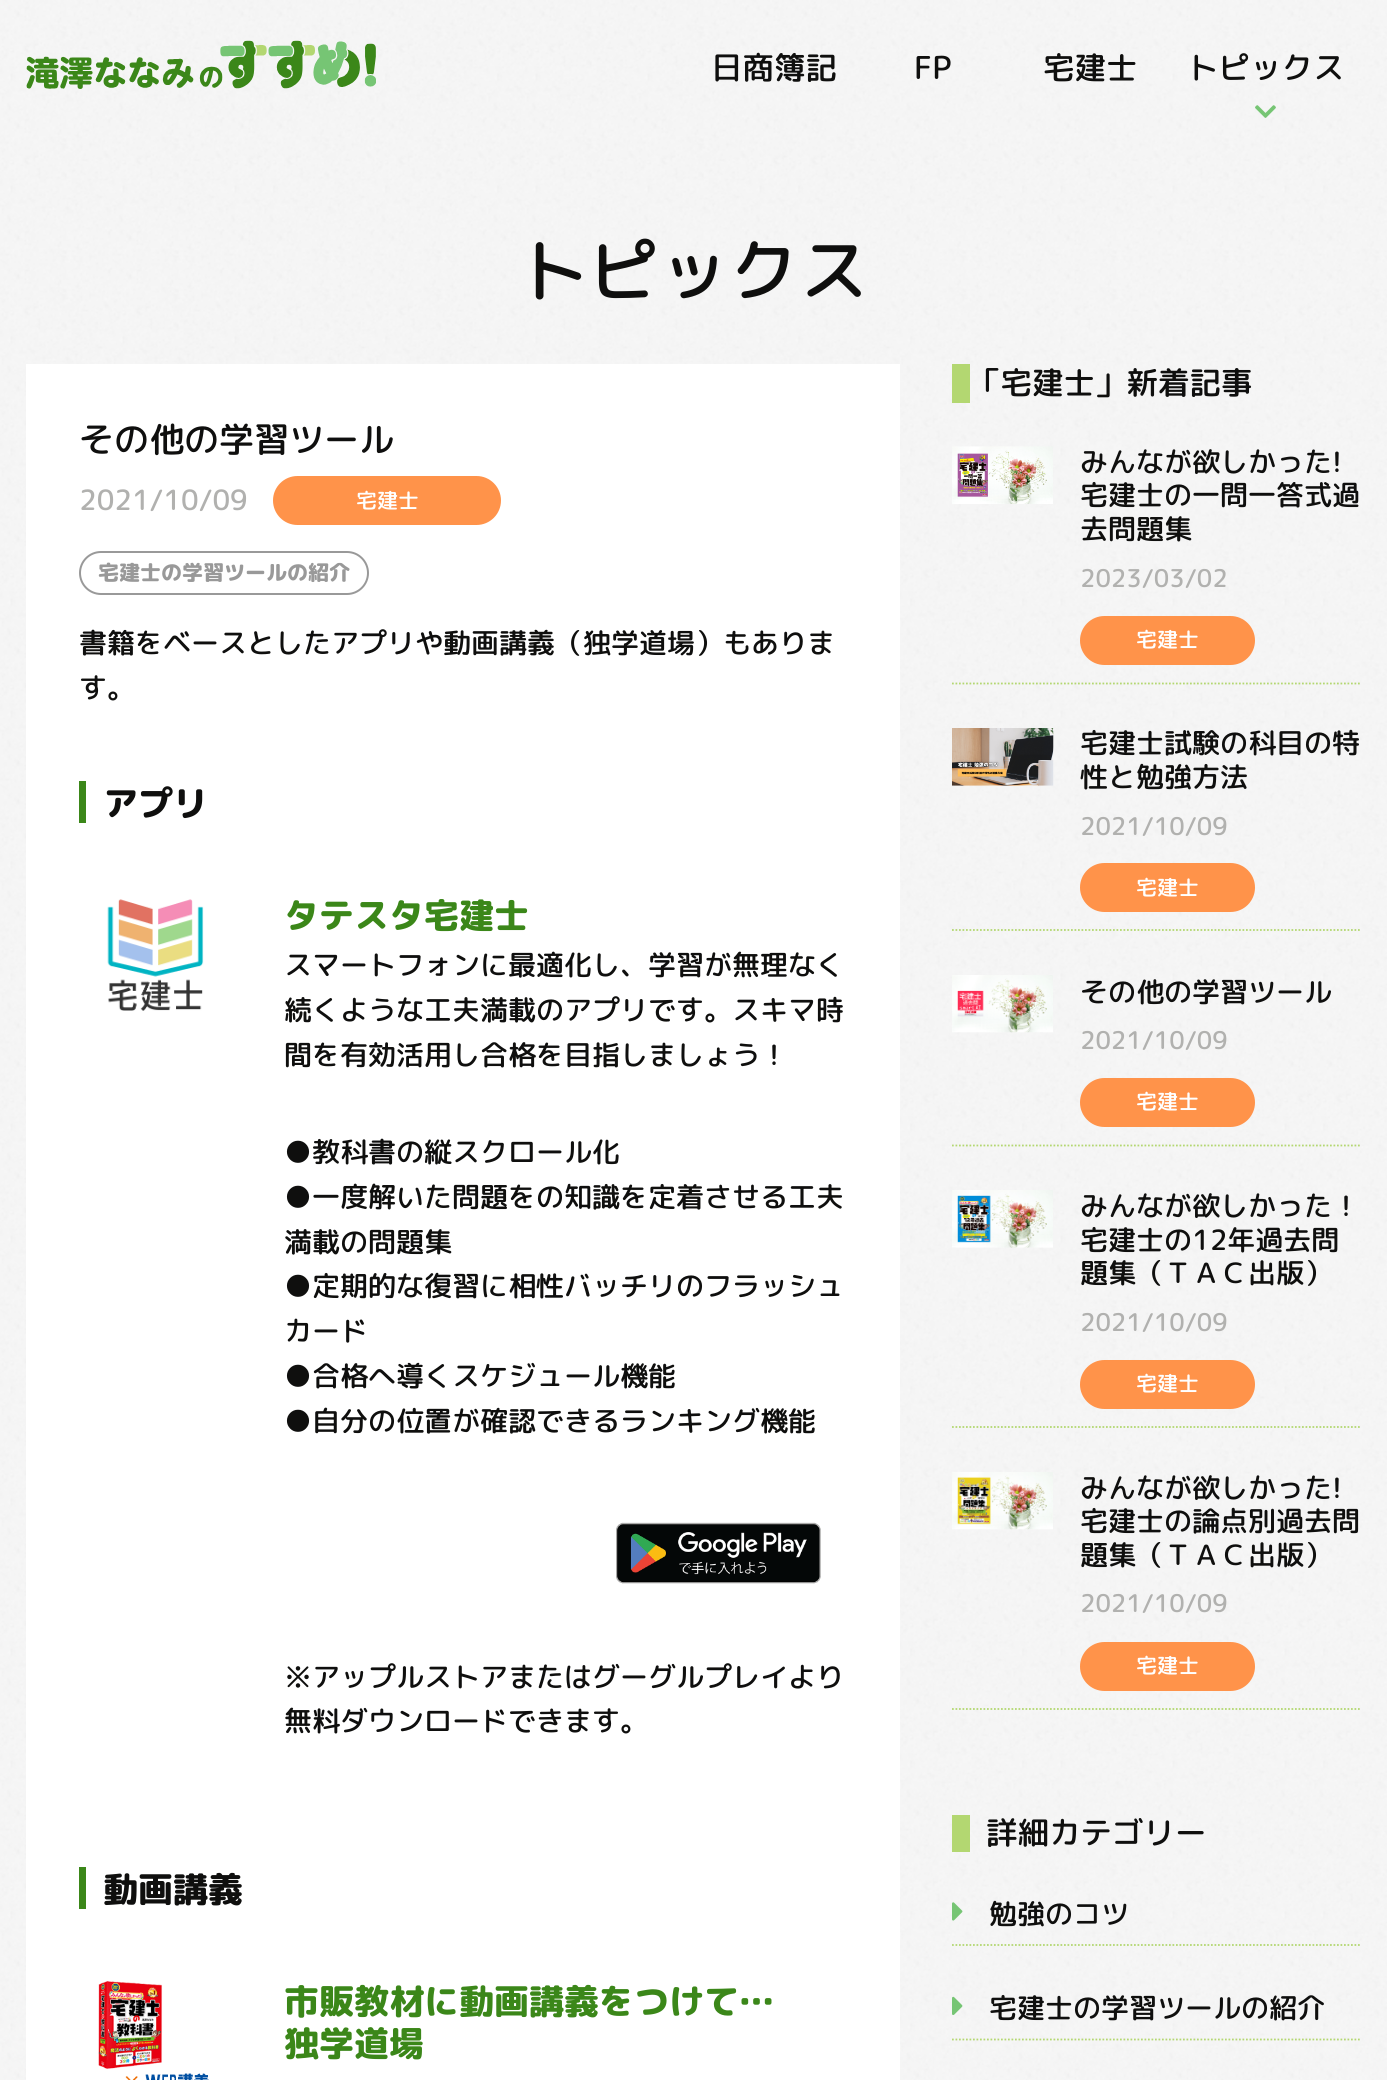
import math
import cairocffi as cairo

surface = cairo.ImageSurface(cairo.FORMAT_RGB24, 1387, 2080)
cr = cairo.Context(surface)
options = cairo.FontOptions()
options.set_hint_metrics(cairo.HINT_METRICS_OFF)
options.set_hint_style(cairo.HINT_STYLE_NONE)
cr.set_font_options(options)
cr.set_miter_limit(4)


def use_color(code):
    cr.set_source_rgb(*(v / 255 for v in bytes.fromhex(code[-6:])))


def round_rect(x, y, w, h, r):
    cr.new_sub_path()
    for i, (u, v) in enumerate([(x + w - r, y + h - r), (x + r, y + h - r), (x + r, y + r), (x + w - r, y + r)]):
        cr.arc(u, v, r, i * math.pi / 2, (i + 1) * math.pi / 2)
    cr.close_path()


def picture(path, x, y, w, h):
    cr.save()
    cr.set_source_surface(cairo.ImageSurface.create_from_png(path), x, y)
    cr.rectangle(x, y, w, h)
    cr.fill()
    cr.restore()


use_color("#ffffff")
cr.paint()
picture("img1.png", 0, 0, 1387, 2080)
picture("img2.png", 26, 40, 350, 49)
cr.select_font_face("Rounded Mplus 1c Medium")
cr.set_font_size(31.5)
use_color("#0f0f0e")
cr.move_to(711, 79)
cr.show_text("日商簿記")
cr.move_to(914, 79)
cr.show_text("FP")
cr.move_to(1043, 79)
cr.show_text("宅建士")
cr.move_to(1187, 79)
cr.show_text("トピックス")
picture("img3.png", 1255, 105, 21, 13)
cr.set_font_size(70)
cr.move_to(519, 296)
cr.show_text("トピックス")
use_color("#ffffff")
cr.rectangle(26, 364, 874, 1716)
cr.fill()
cr.set_font_size(35)
use_color("#0f0f0e")
cr.move_to(79, 452)
cr.show_text("その他の学習ツール")
cr.set_font_size(28)
use_color("#b1b1af")
cr.move_to(79, 510)
cr.show_text("2021/10/09")
use_color("#ff934a")
round_rect(273, 476, 228, 49, 24.5)
cr.fill()
cr.set_font_size(21)
use_color("#ffffff")
cr.move_to(356, 508)
cr.show_text("宅建士")
round_rect(80, 552, 288, 42, 21)
use_color("#999999")
cr.stroke()
cr.select_font_face("Rounded Mplus 1c ExtraBold")
cr.move_to(98, 580)
cr.show_text("宅建士の学習ツールの紹介")
cr.select_font_face("Rounded Mplus 1c Medium")
cr.set_font_size(28)
use_color("#0f0f0e")
cr.move_to(79, 653)
cr.show_text("書籍をベースとしたアプリや動画講義（独学道場）もありま")
cr.move_to(79, 698)
cr.show_text("す。")
use_color("#3b8719")
cr.rectangle(79, 781, 7, 42)
cr.fill()
cr.select_font_face("Rounded Mplus 1c ExtraBold")
cr.set_font_size(35)
use_color("#0f0f0e")
cr.move_to(103, 816)
cr.show_text("アプリ")
picture("img4.png", 107, 899, 97, 112)
use_color("#3b8719")
cr.move_to(284, 928)
cr.show_text("タテスタ宅建士")
cr.select_font_face("Rounded Mplus 1c Medium")
cr.set_font_size(28)
use_color("#0f0f0e")
cr.move_to(284, 975)
cr.show_text("スマートフォンに最適化し、学習が無理なく")
cr.move_to(284, 1020)
cr.show_text("続くような工夫満載のアプリです。スキマ時")
cr.move_to(284, 1065)
cr.show_text("間を有効活用し合格を目指しましょう！")
cr.move_to(284, 1162)
cr.show_text("●教科書の縦スクロール化")
cr.move_to(284, 1207)
cr.show_text("●一度解いた問題をの知識を定着させる工夫")
cr.move_to(284, 1252)
cr.show_text("満載の問題集")
cr.move_to(284, 1296)
cr.show_text("●定期的な復習に相性バッチリのフラッシュ")
cr.move_to(284, 1341)
cr.show_text("カード")
cr.move_to(284, 1386)
cr.show_text("●合格へ導くスケジュール機能")
cr.move_to(284, 1431)
cr.show_text("●自分の位置が確認できるランキング機能")
picture("img5.png", 616, 1522, 205, 62)
cr.move_to(284, 1687)
cr.show_text("※アップルストアまたはグーグルプレイより")
cr.move_to(284, 1731)
cr.show_text("無料ダウンロードできます。")
use_color("#3b8719")
cr.rectangle(79, 1867, 7, 42)
cr.fill()
cr.select_font_face("Rounded Mplus 1c ExtraBold")
cr.set_font_size(35)
use_color("#0f0f0e")
cr.move_to(103, 1902)
cr.show_text("動画講義")
picture("img6.png", 98, 1981, 111, 99)
use_color("#3b8719")
cr.move_to(284, 2014)
cr.show_text("市販教材に動画講義をつけて…")
cr.move_to(284, 2056)
cr.show_text("独学道場")
use_color("#b3d771")
cr.rectangle(952, 364, 18, 39)
cr.fill()
cr.select_font_face("Rounded Mplus 1c Medium")
cr.set_font_size(31.5)
use_color("#0f0f0e")
cr.move_to(969, 394)
cr.show_text("「宅建士」新着記事")
cr.new_path()
cr.move_to(952, 683.5)
cr.line_to(1361.5, 683.5)
use_color("#b3d771")
cr.set_line_width(1.8)
cr.set_dash([1.75, 1.75])
cr.stroke()
picture("img7.png", 952, 446, 101, 58)
cr.set_font_size(28)
use_color("#0f0f0e")
cr.move_to(1080, 472)
cr.show_text("みんなが欲しかった!")
cr.move_to(1080, 505)
cr.show_text("宅建士の一問一答式過")
cr.move_to(1080, 539)
cr.show_text("去問題集")
cr.set_font_size(24.5)
use_color("#b1b1af")
cr.move_to(1080, 587)
cr.show_text("2023/03/02")
use_color("#ff934a")
round_rect(1080, 616, 175, 49, 24.5)
cr.fill()
cr.set_font_size(21)
use_color("#ffffff")
cr.move_to(1136, 647)
cr.show_text("宅建士")
cr.new_path()
cr.move_to(952, 930)
cr.line_to(1361.5, 930)
use_color("#b3d771")
cr.stroke()
picture("img8.png", 952, 728, 102, 58)
cr.set_font_size(28)
use_color("#0f0f0e")
cr.move_to(1080, 753)
cr.show_text("宅建士試験の科目の特")
cr.move_to(1080, 787)
cr.show_text("性と勉強方法")
cr.set_font_size(24.5)
use_color("#b1b1af")
cr.move_to(1080, 835)
cr.show_text("2021/10/09")
use_color("#ff934a")
round_rect(1080, 863, 175, 49, 24.5)
cr.fill()
cr.set_font_size(21)
use_color("#ffffff")
cr.move_to(1136, 895)
cr.show_text("宅建士")
cr.new_path()
cr.move_to(952, 1145.5)
cr.line_to(1361.5, 1145.5)
use_color("#b3d771")
cr.stroke()
picture("img9.png", 952, 975, 101, 58)
cr.set_font_size(28)
use_color("#0f0f0e")
cr.move_to(1080, 1002)
cr.show_text("その他の学習ツール")
cr.set_font_size(24.5)
use_color("#b1b1af")
cr.move_to(1080, 1049)
cr.show_text("2021/10/09")
use_color("#ff934a")
round_rect(1080, 1078, 175, 49, 24.5)
cr.fill()
cr.set_font_size(21)
use_color("#ffffff")
cr.move_to(1136, 1109)
cr.show_text("宅建士")
cr.new_path()
cr.move_to(952, 1427)
cr.line_to(1361.5, 1427)
use_color("#b3d771")
cr.stroke()
picture("img10.png", 952, 1190, 101, 58)
cr.set_font_size(28)
use_color("#0f0f0e")
cr.move_to(1080, 1216)
cr.show_text("みんなが欲しかった！")
cr.move_to(1080, 1250)
cr.show_text("宅建士の12年過去問")
cr.move_to(1080, 1283)
cr.show_text("題集（ＴＡＣ出版）")
cr.set_font_size(24.5)
use_color("#b1b1af")
cr.move_to(1080, 1331)
cr.show_text("2021/10/09")
use_color("#ff934a")
round_rect(1080, 1360, 175, 49, 24.5)
cr.fill()
cr.set_font_size(21)
use_color("#ffffff")
cr.move_to(1136, 1391)
cr.show_text("宅建士")
cr.new_path()
cr.move_to(952, 1709)
cr.line_to(1361.5, 1709)
use_color("#b3d771")
cr.stroke()
picture("img11.png", 952, 1472, 101, 58)
cr.set_font_size(28)
use_color("#0f0f0e")
cr.move_to(1080, 1498)
cr.show_text("みんなが欲しかった!")
cr.move_to(1080, 1531)
cr.show_text("宅建士の論点別過去問")
cr.move_to(1080, 1565)
cr.show_text("題集（ＴＡＣ出版）")
cr.set_font_size(24.5)
use_color("#b1b1af")
cr.move_to(1080, 1612)
cr.show_text("2021/10/09")
use_color("#ff934a")
round_rect(1080, 1642, 175, 49, 24.5)
cr.fill()
cr.set_font_size(21)
use_color("#ffffff")
cr.move_to(1136, 1673)
cr.show_text("宅建士")
use_color("#b3d771")
cr.rectangle(952, 1815, 18, 37)
cr.fill()
cr.set_font_size(31.5)
use_color("#0f0f0e")
cr.move_to(986, 1844)
cr.show_text("詳細カテゴリー")
cr.new_path()
cr.move_to(952, 1945)
cr.line_to(1361.5, 1945)
use_color("#b3d771")
cr.stroke()
picture("img12.png", 952, 1902, 11, 19)
cr.set_font_size(28)
use_color("#0f0f0e")
cr.move_to(989, 1924)
cr.show_text("勉強のコツ")
cr.new_path()
cr.move_to(952, 2039.5)
cr.line_to(1361.5, 2039.5)
use_color("#b3d771")
cr.stroke()
picture("img13.png", 952, 1996, 11, 19)
use_color("#0f0f0e")
cr.move_to(989, 2018)
cr.show_text("宅建士の学習ツールの紹介")
surface.write_to_png("result.png")
